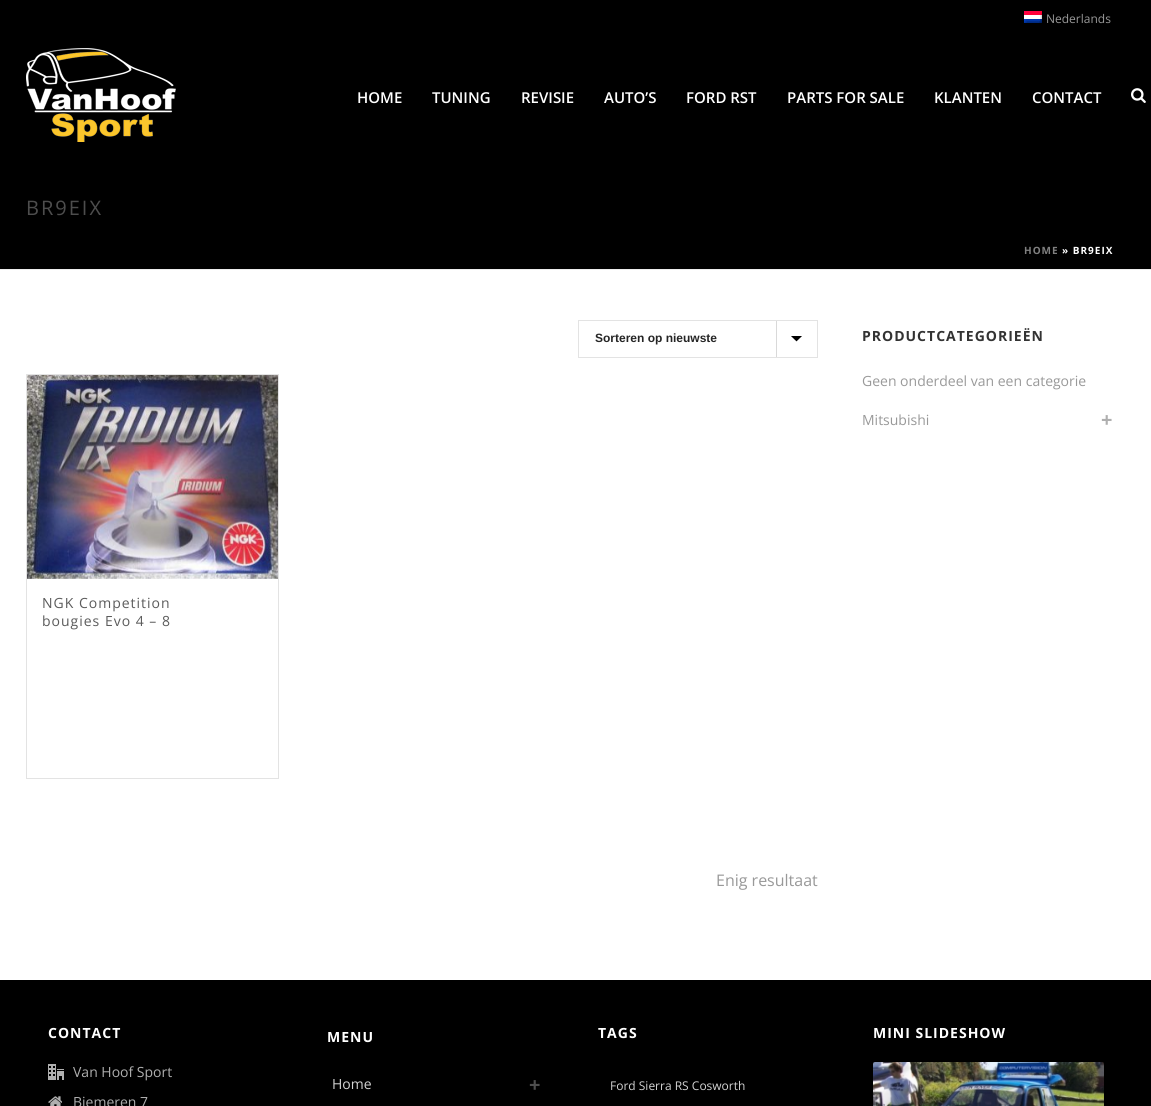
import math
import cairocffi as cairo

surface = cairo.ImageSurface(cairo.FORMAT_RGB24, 1151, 1106)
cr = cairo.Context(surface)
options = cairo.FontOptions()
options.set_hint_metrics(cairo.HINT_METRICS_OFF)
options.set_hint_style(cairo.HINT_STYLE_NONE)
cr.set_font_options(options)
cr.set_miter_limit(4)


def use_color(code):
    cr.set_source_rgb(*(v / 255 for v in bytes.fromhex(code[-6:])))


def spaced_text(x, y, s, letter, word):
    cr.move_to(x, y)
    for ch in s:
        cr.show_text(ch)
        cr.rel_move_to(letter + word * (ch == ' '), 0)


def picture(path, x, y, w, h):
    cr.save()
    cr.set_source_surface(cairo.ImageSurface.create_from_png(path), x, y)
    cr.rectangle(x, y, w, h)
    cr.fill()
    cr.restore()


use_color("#000000")
cr.paint()
use_color("#ededed")
cr.rectangle(0, 269, 1151, 1)
cr.fill()
picture("img1.png", 1024, 11, 18, 12)
cr.select_font_face("Open Sans")
cr.set_font_size(12)
use_color("#999999")
cr.move_to(1046, 23)
cr.show_text("Nederlands")
picture("img2.png", 26, 48, 150, 94)
cr.select_font_face("Open Sans SemiBold")
cr.set_font_size(15)
use_color("#ffffff")
cr.move_to(357, 103)
cr.show_text("HOME")
cr.move_to(432, 103)
cr.show_text("TUNING")
cr.move_to(521, 103)
cr.show_text("REVISIE")
cr.move_to(604, 103)
cr.show_text("AUTO’S")
cr.move_to(686, 103)
cr.show_text("FORD RST")
cr.move_to(787, 103)
cr.show_text("PARTS FOR SALE")
cr.move_to(934, 103)
cr.show_text("KLANTEN")
cr.move_to(1032, 103)
cr.show_text("CONTACT")
picture("img3.png", 1131, 88, 15, 15)
cr.select_font_face("Open Sans")
cr.set_font_size(20)
use_color("#4d4d4d")
spaced_text(26, 215, "BR9EIX", 2, 0)
cr.select_font_face("Open Sans", cairo.FONT_SLANT_NORMAL, cairo.FONT_WEIGHT_BOLD)
cr.set_font_size(10)
use_color("#808080")
spaced_text(1024, 254, "HOME", 1, 0)
use_color("#ffffff")
spaced_text(1062, 254, "» BR9EIX", 1, 0)
cr.rectangle(0, 270, 1151, 710)
cr.fill()
picture("img4.png", 776, 321, 26, 36)
cr.rectangle(578.5, 320.5, 239, 37)
use_color("#e3e3e3")
cr.set_line_width(1)
cr.stroke()
cr.select_font_face("Liberation Sans", cairo.FONT_SLANT_NORMAL, cairo.FONT_WEIGHT_BOLD)
cr.set_font_size(12)
use_color("#252525")
cr.move_to(595, 342)
cr.show_text("Sorteren op nieuwste")
cr.rectangle(26.5, 374.5, 252, 404)
use_color("#e3e3e3")
cr.stroke()
picture("img5.png", 27, 375, 251, 204)
cr.select_font_face("Open Sans")
cr.set_font_size(14)
use_color("#5b5b5b")
spaced_text(42, 608, "NGK Competition", 1, 0)
spaced_text(42, 626, "bougies Evo 4 – 8", 1, 0)
cr.set_font_size(16)
use_color("#999999")
cr.move_to(716, 886)
cr.show_text("Enig resultaat")
cr.select_font_face("Open Sans", cairo.FONT_SLANT_NORMAL, cairo.FONT_WEIGHT_BOLD)
cr.set_font_size(14)
use_color("#333333")
spaced_text(862, 341, "PRODUCTCATEGORIEËN", 1, 0)
cr.select_font_face("Open Sans")
use_color("#999999")
cr.move_to(862, 386)
cr.show_text("Geen onderdeel van een categorie")
cr.move_to(862, 425)
cr.show_text("Mitsubishi")
cr.select_font_face("Open Sans", cairo.FONT_SLANT_NORMAL, cairo.FONT_WEIGHT_BOLD)
cr.set_font_size(20)
use_color("#afafaf")
cr.move_to(1101, 427)
cr.show_text("+")
cr.set_font_size(14)
use_color("#ffffff")
spaced_text(48, 1038, "CONTACT", 1, 0)
picture("img6.png", 48, 1064, 16, 16)
cr.select_font_face("Open Sans")
use_color("#afafaf")
cr.move_to(73, 1077)
cr.show_text("Van Hoof Sport")
picture("img7.png", 48, 1096, 14, 10)
cr.move_to(73, 1107)
cr.show_text("Biemeren 7")
cr.select_font_face("Open Sans", cairo.FONT_SLANT_NORMAL, cairo.FONT_WEIGHT_BOLD)
use_color("#ffffff")
spaced_text(327, 1042, "MENU", 1, 0)
cr.select_font_face("Open Sans")
use_color("#d3d3d3")
cr.move_to(332, 1089)
cr.show_text("Home")
cr.select_font_face("Open Sans", cairo.FONT_SLANT_NORMAL, cairo.FONT_WEIGHT_BOLD)
cr.set_font_size(20)
use_color("#4d4d4d")
cr.move_to(529, 1092)
cr.show_text("+")
cr.set_font_size(14)
use_color("#ffffff")
spaced_text(598, 1038, "TAGS", 1, 0)
cr.select_font_face("Open Sans")
cr.set_font_size(12)
use_color("#d3d3d3")
cr.move_to(610, 1090)
cr.show_text("Ford Sierra RS Cosworth")
cr.select_font_face("Open Sans", cairo.FONT_SLANT_NORMAL, cairo.FONT_WEIGHT_BOLD)
cr.set_font_size(14)
use_color("#ffffff")
spaced_text(873, 1038, "MINI SLIDESHOW", 1, 0)
picture("img8.png", 873, 1062, 231, 44)
surface.write_to_png("result.png")
